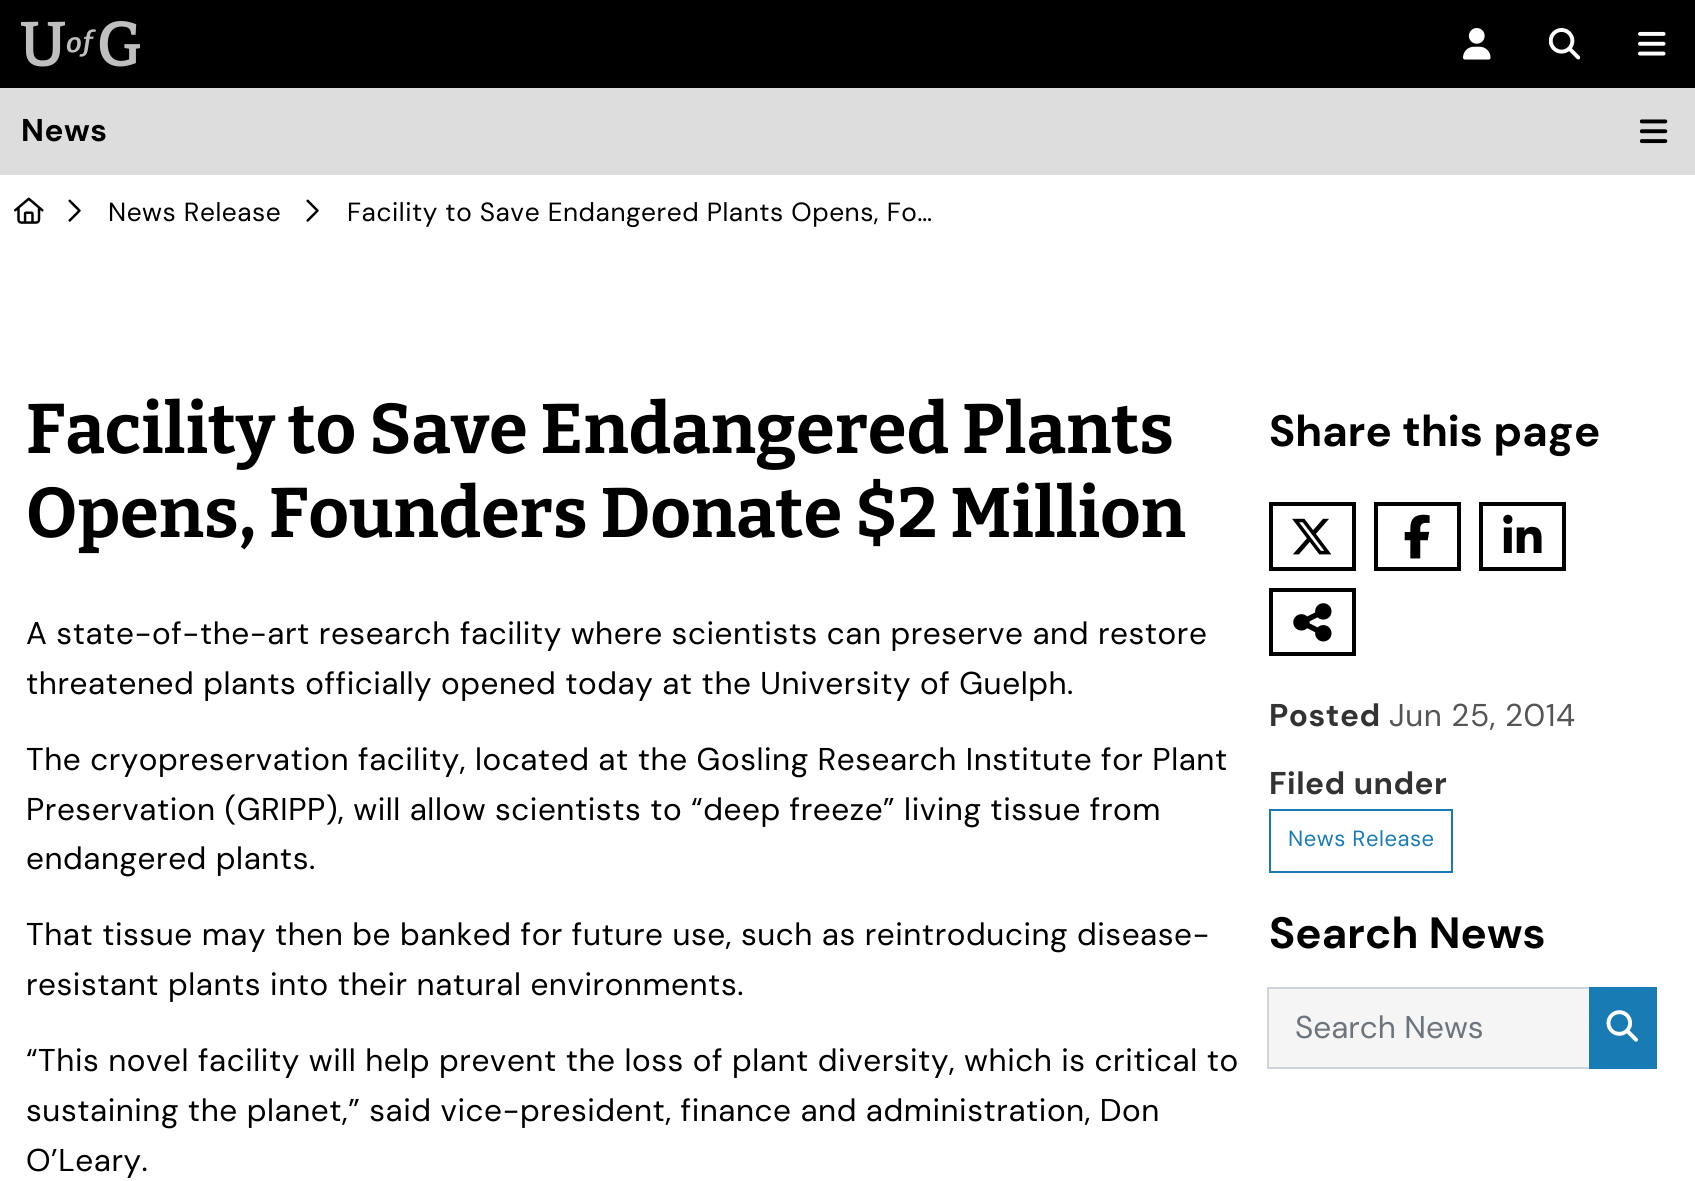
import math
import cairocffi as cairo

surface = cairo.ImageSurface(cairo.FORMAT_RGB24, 1695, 1181)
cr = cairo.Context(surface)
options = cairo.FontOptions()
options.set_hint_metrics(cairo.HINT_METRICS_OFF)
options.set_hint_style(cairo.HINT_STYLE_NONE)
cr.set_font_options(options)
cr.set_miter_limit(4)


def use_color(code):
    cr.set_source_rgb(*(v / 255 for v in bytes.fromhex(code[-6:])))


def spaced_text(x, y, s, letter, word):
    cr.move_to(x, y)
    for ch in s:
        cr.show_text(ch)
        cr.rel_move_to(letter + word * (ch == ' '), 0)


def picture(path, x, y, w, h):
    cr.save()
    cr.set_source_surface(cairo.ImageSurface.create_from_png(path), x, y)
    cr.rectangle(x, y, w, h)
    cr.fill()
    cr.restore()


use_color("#ffffff")
cr.paint()
use_color("#000000")
cr.rectangle(0, 0, 1695, 88)
cr.fill()
picture("img1.png", 21, 21, 119, 46)
picture("img2.png", 1463, 28, 28, 32)
picture("img3.png", 1549, 28, 31, 32)
picture("img4.png", 1638, 31, 28, 25)
use_color("#dddddd")
cr.rectangle(0, 88, 1695, 87)
cr.fill()
cr.select_font_face("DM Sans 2", cairo.FONT_SLANT_NORMAL, cairo.FONT_WEIGHT_BOLD)
cr.set_font_size(31.5)
use_color("#000000")
spaced_text(21, 141, "News", 0.53, 0)
picture("img5.png", 1640, 119, 28, 25)
picture("img6.png", 14, 197, 30, 27)
picture("img7.png", 68, 199, 13, 23)
cr.select_font_face("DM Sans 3")
cr.set_font_size(26.25)
spaced_text(108, 221, "News Release", 0.53, 0)
picture("img7.png", 306, 199, 13, 23)
spaced_text(347, 221, "Facility to Save Endangered Plants Opens, Fo…", 0.53, 0)
cr.select_font_face("Bitter Thin")
cr.set_font_size(70)
spaced_text(26, 453, "Facility to Save Endangered Plants", 0.2, 0)
spaced_text(26, 537, "Opens, Founders Donate $2 Million", 0.2, 0)
cr.select_font_face("DM Sans")
cr.set_font_size(31.5)
spaced_text(26, 644, "A state-of-the-art research facility where scientists can preserve and restore", 0.53, 0)
spaced_text(26, 694, "threatened plants officially opened today at the University of Guelph.", 0.53, 0)
spaced_text(26, 770, "The cryopreservation facility, located at the Gosling Research Institute for Plant", 0.53, 0)
spaced_text(26, 820, "Preservation (GRIPP), will allow scientists to “deep freeze” living tissue from", 0.53, 0)
spaced_text(26, 869, "endangered plants.", 0.53, 0)
spaced_text(26, 945, "That tissue may then be banked for future use, such as reintroducing disease-", 0.53, 0)
spaced_text(26, 995, "resistant plants into their natural environments.", 0.53, 0)
spaced_text(26, 1071, "“This novel facility will help prevent the loss of plant diversity, which is critical to", 0.53, 0)
spaced_text(26, 1121, "sustaining the planet,” said vice-president, finance and administration, Don", 0.53, 0)
spaced_text(26, 1171, "O’Leary.", 0.53, 0)
cr.select_font_face("DM Sans", cairo.FONT_SLANT_NORMAL, cairo.FONT_WEIGHT_BOLD)
cr.set_font_size(43.75)
spaced_text(1269, 446, "Share this page", 0.2, 0)
cr.rectangle(1271, 504, 83, 65)
cr.set_line_width(4)
cr.stroke()
picture("img8.png", 1292, 518, 40, 37)
cr.rectangle(1376, 504, 83, 65)
cr.stroke()
picture("img9.png", 1404, 514, 26, 45)
cr.rectangle(1481, 504, 83, 65)
cr.stroke()
picture("img10.png", 1503, 514, 39, 39)
cr.rectangle(1271, 590, 83, 64)
cr.stroke()
picture("img11.png", 1293, 603, 39, 39)
cr.select_font_face("DM Sans 2", cairo.FONT_SLANT_NORMAL, cairo.FONT_WEIGHT_BOLD)
cr.set_font_size(31.5)
use_color("#333333")
spaced_text(1269, 726, "Posted", 0.53, 0)
cr.select_font_face("DM Sans")
use_color("#555555")
spaced_text(1389, 726, "Jun 25, 2014", 0.53, 0)
cr.select_font_face("DM Sans 2", cairo.FONT_SLANT_NORMAL, cairo.FONT_WEIGHT_BOLD)
use_color("#333333")
spaced_text(1269, 794, "Filed under", 0.53, 0)
cr.rectangle(1270, 810, 182, 62)
use_color("#187bb4")
cr.set_line_width(2)
cr.stroke()
cr.select_font_face("DM Sans 2")
cr.set_font_size(22)
spaced_text(1288, 846, "News Release", 0.53, 0)
cr.select_font_face("DM Sans", cairo.FONT_SLANT_NORMAL, cairo.FONT_WEIGHT_BOLD)
cr.set_font_size(43.75)
use_color("#000000")
spaced_text(1269, 948, "Search News", 0.2, 0)
use_color("#f5f5f5")
cr.rectangle(1268, 988, 322, 80)
cr.fill_preserve()
use_color("#ced4da")
cr.stroke()
cr.select_font_face("DM Sans")
cr.set_font_size(31.5)
use_color("#6c757d")
cr.move_to(1295, 1038)
cr.show_text("Search News")
use_color("#187bb4")
cr.rectangle(1589, 987, 68, 82)
cr.fill()
picture("img12.png", 1606, 1010, 32, 32)
surface.write_to_png("result.png")
